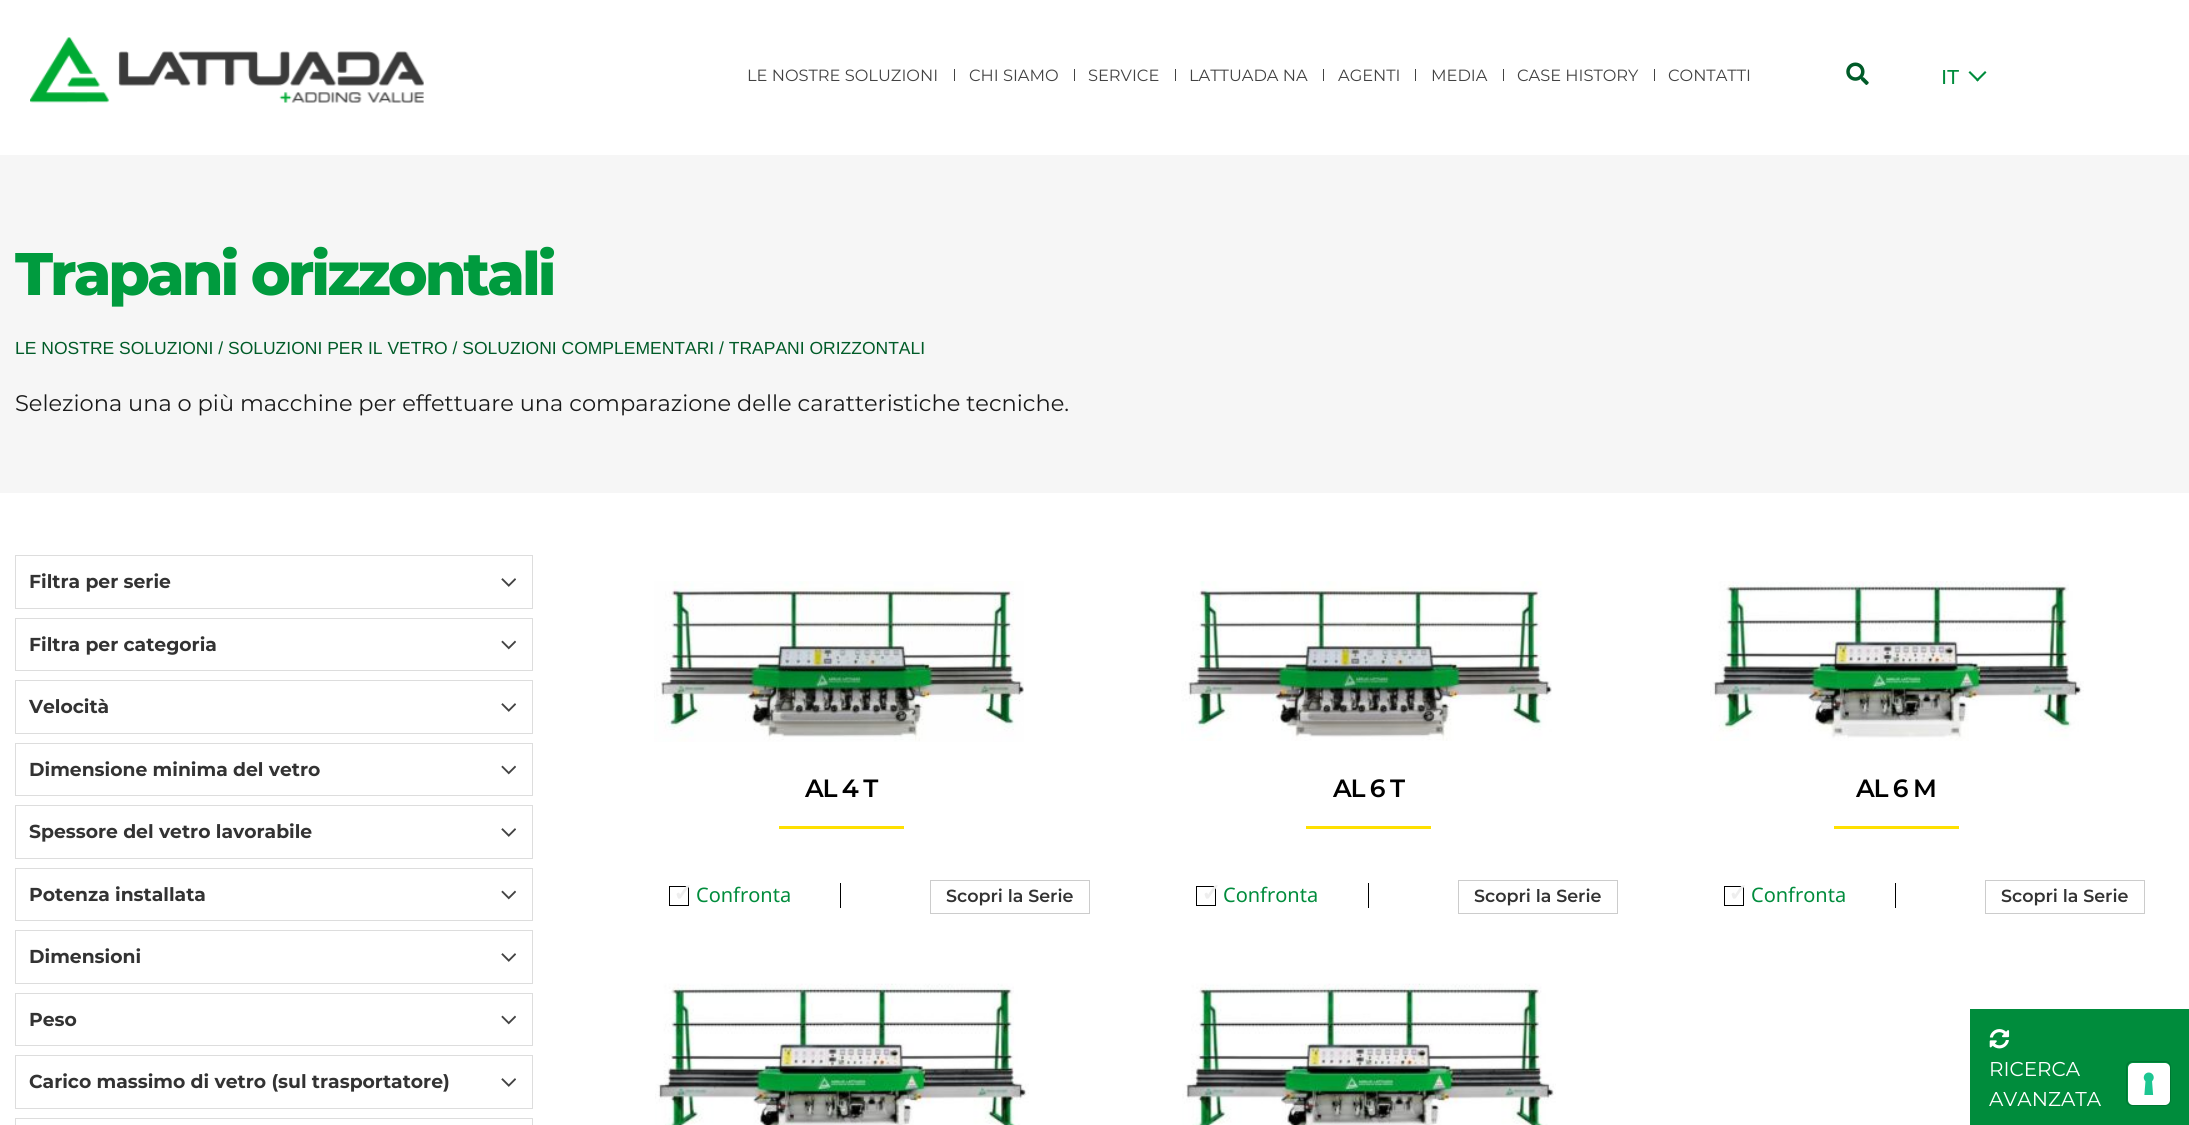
import math
import cairocffi as cairo

surface = cairo.ImageSurface(cairo.FORMAT_RGB24, 2189, 1125)
cr = cairo.Context(surface)
options = cairo.FontOptions()
options.set_hint_metrics(cairo.HINT_METRICS_OFF)
options.set_hint_style(cairo.HINT_STYLE_NONE)
cr.set_font_options(options)
cr.set_miter_limit(4)


def use_color(code):
    cr.set_source_rgb(*(v / 255 for v in bytes.fromhex(code[-6:])))


def spaced_text(x, y, s, letter, word):
    cr.move_to(x, y)
    for ch in s:
        cr.show_text(ch)
        cr.rel_move_to(letter + word * (ch == ' '), 0)


def round_rect(x, y, w, h, r):
    cr.new_sub_path()
    for i, (u, v) in enumerate([(x + w - r, y + h - r), (x + r, y + h - r), (x + r, y + r), (x + w - r, y + r)]):
        cr.arc(u, v, r, i * math.pi / 2, (i + 1) * math.pi / 2)
    cr.close_path()


def picture(path, x, y, w, h):
    cr.save()
    cr.set_source_surface(cairo.ImageSurface.create_from_png(path), x, y)
    cr.rectangle(x, y, w, h)
    cr.fill()
    cr.restore()


use_color("#ffffff")
cr.paint()
picture("img1.png", 30, 37, 394, 66)
cr.select_font_face("Montserrat")
cr.set_font_size(16.25)
use_color("#424242")
cr.move_to(747, 81)
cr.show_text("LE NOSTRE SOLUZIONI")
cr.rectangle(954, 69, 1, 12)
cr.fill()
cr.move_to(969, 81)
cr.show_text("CHI SIAMO")
cr.rectangle(1074, 69, 1, 12)
cr.fill()
cr.move_to(1088, 81)
cr.show_text("SERVICE")
cr.rectangle(1175, 69, 1, 12)
cr.fill()
cr.move_to(1189, 81)
cr.show_text("LATTUADA NA")
cr.rectangle(1323, 69, 1, 12)
cr.fill()
cr.move_to(1338, 81)
cr.show_text("AGENTI")
cr.rectangle(1415, 69, 1, 12)
cr.fill()
cr.move_to(1431, 81)
cr.show_text("MEDIA")
cr.rectangle(1503, 69, 1, 12)
cr.fill()
cr.move_to(1517, 81)
cr.show_text("CASE HISTORY")
cr.rectangle(1654, 69, 1, 12)
cr.fill()
cr.move_to(1668, 81)
cr.show_text("CONTATTI")
picture("img2.png", 1846, 62, 23, 23)
cr.select_font_face("Montserrat Medium")
cr.set_font_size(20)
use_color("#008c3c")
cr.move_to(1941, 84)
cr.show_text("IT")
cr.new_path()
cr.move_to(1968.5, 72.5)
cr.line_to(1970, 71)
cr.line_to(1979, 80)
cr.line_to(1977.5, 81.5)
cr.close_path()
cr.fill()
cr.new_path()
cr.move_to(1985, 71)
cr.line_to(1986.5, 72.5)
cr.line_to(1977.5, 81.5)
cr.line_to(1976, 80)
cr.close_path()
cr.fill()
use_color("#f6f6f6")
cr.rectangle(0, 155, 2189, 338)
cr.fill()
cr.select_font_face("Montserrat ExtraBold")
cr.set_font_size(60)
use_color("#009b3e")
spaced_text(15, 295, "Trapani orizzontali", -3, 0)
cr.select_font_face("Liberation Sans")
cr.set_font_size(17.5)
use_color("#005b28")
cr.move_to(15, 354)
cr.show_text("LE NOSTRE SOLUZIONI / SOLUZIONI PER IL VETRO / SOLUZIONI COMPLEMENTARI / TRAPANI ORIZZONTALI")
cr.select_font_face("Montserrat")
cr.set_font_size(22.5)
use_color("#1a1a1a")
cr.move_to(15, 411)
cr.show_text("Seleziona una o più macchine per effettuare una comparazione delle caratteristiche tecniche.")
cr.rectangle(15.5, 555.5, 517, 53)
use_color("#dddddd")
cr.set_line_width(1)
cr.stroke()
cr.select_font_face("Montserrat", cairo.FONT_SLANT_NORMAL, cairo.FONT_WEIGHT_BOLD)
cr.set_font_size(18.75)
use_color("#333333")
cr.move_to(29, 588)
cr.show_text("Filtra per serie")
picture("img3.png", 501, 578, 15, 9)
cr.rectangle(15.5, 618.5, 517, 52)
use_color("#dddddd")
cr.stroke()
use_color("#333333")
cr.move_to(29, 651)
cr.show_text("Filtra per categoria")
picture("img4.png", 501, 640, 15, 10)
cr.rectangle(15.5, 680.5, 517, 53)
use_color("#dddddd")
cr.stroke()
use_color("#333333")
cr.move_to(29, 713)
cr.show_text("Velocità")
picture("img3.png", 501, 703, 15, 9)
cr.rectangle(15.5, 743.5, 517, 52)
use_color("#dddddd")
cr.stroke()
use_color("#333333")
cr.move_to(29, 776)
cr.show_text("Dimensione minima del vetro")
picture("img4.png", 501, 765, 15, 10)
cr.rectangle(15.5, 805.5, 517, 53)
use_color("#dddddd")
cr.stroke()
use_color("#333333")
cr.move_to(29, 838)
cr.show_text("Spessore del vetro lavorabile")
picture("img3.png", 501, 828, 15, 9)
cr.rectangle(15.5, 868.5, 517, 52)
use_color("#dddddd")
cr.stroke()
use_color("#333333")
cr.move_to(29, 901)
cr.show_text("Potenza installata")
picture("img4.png", 501, 890, 15, 10)
cr.rectangle(15.5, 930.5, 517, 53)
use_color("#dddddd")
cr.stroke()
use_color("#333333")
cr.move_to(29, 963)
cr.show_text("Dimensioni")
picture("img3.png", 501, 953, 15, 9)
cr.rectangle(15.5, 993.5, 517, 52)
use_color("#dddddd")
cr.stroke()
use_color("#333333")
cr.move_to(29, 1026)
cr.show_text("Peso")
picture("img4.png", 501, 1015, 15, 10)
cr.rectangle(15.5, 1055.5, 517, 53)
use_color("#dddddd")
cr.stroke()
use_color("#333333")
cr.move_to(29, 1088)
cr.show_text("Carico massimo di vetro (sul trasportatore)")
picture("img3.png", 501, 1078, 15, 9)
cr.rectangle(15.5, 1118.5, 517, 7)
use_color("#dddddd")
cr.stroke()
picture("img5.png", 654, 581, 370, 161)
cr.select_font_face("Montserrat SemiBold")
cr.set_font_size(25)
use_color("#000000")
spaced_text(805, 797, "AL 4 T", -1.25, 0)
use_color("#ffe000")
cr.rectangle(779, 826, 125, 3)
cr.fill()
cr.rectangle(669.5, 886.5, 19, 19)
use_color("#000000")
cr.stroke()
cr.select_font_face("DejaVu Sans", cairo.FONT_SLANT_NORMAL, cairo.FONT_WEIGHT_BOLD)
cr.set_font_size(24)
use_color("#eeeeee")
cr.move_to(673, 901)
cr.show_text("✓")
cr.select_font_face("Noto Sans")
cr.set_font_size(20)
use_color("#008c3c")
cr.move_to(696, 902)
cr.show_text("Confronta")
use_color("#000000")
cr.rectangle(840, 883, 1, 25)
cr.fill()
cr.rectangle(930.5, 880.5, 159, 33)
use_color("#cccccc")
cr.stroke()
cr.select_font_face("Montserrat SemiBold")
cr.set_font_size(17.5)
use_color("#333333")
cr.move_to(946, 902)
cr.show_text("Scopri la Serie")
picture("img6.png", 1181, 581, 371, 160)
cr.set_font_size(25)
use_color("#000000")
spaced_text(1333, 797, "AL 6 T", -1.25, 0)
use_color("#ffe000")
cr.rectangle(1306, 826, 125, 3)
cr.fill()
cr.rectangle(1196.5, 886.5, 19, 19)
use_color("#000000")
cr.stroke()
cr.select_font_face("DejaVu Sans", cairo.FONT_SLANT_NORMAL, cairo.FONT_WEIGHT_BOLD)
cr.set_font_size(24)
use_color("#eeeeee")
cr.move_to(1201, 901)
cr.show_text("✓")
cr.select_font_face("Noto Sans")
cr.set_font_size(20)
use_color("#008c3c")
cr.move_to(1223, 902)
cr.show_text("Confronta")
use_color("#000000")
cr.rectangle(1368, 883, 1, 25)
cr.fill()
cr.rectangle(1458.5, 880.5, 159, 33)
use_color("#cccccc")
cr.stroke()
cr.select_font_face("Montserrat SemiBold")
cr.set_font_size(17.5)
use_color("#333333")
cr.move_to(1474, 902)
cr.show_text("Scopri la Serie")
picture("img7.png", 1710, 581, 374, 160)
cr.set_font_size(25)
use_color("#000000")
spaced_text(1856, 797, "AL 6 M", -1.25, 0)
use_color("#ffe000")
cr.rectangle(1834, 826, 125, 3)
cr.fill()
cr.rectangle(1724.5, 886.5, 19, 19)
use_color("#000000")
cr.stroke()
cr.select_font_face("DejaVu Sans", cairo.FONT_SLANT_NORMAL, cairo.FONT_WEIGHT_BOLD)
cr.set_font_size(24)
use_color("#eeeeee")
cr.move_to(1728, 901)
cr.show_text("✓")
cr.select_font_face("Noto Sans")
cr.set_font_size(20)
use_color("#008c3c")
cr.move_to(1751, 902)
cr.show_text("Confronta")
use_color("#000000")
cr.rectangle(1895, 883, 1, 25)
cr.fill()
cr.rectangle(1985.5, 880.5, 159, 33)
use_color("#cccccc")
cr.stroke()
cr.select_font_face("Montserrat SemiBold")
cr.set_font_size(17.5)
use_color("#333333")
cr.move_to(2001, 902)
cr.show_text("Scopri la Serie")
picture("img8.png", 655, 983, 374, 142)
picture("img9.png", 1182, 983, 374, 142)
use_color("#008c3c")
cr.rectangle(1970, 1009, 219, 116)
cr.fill()
picture("img10.png", 1989, 1029, 21, 20)
cr.select_font_face("Montserrat")
cr.set_font_size(20)
use_color("#ffffff")
cr.move_to(1989, 1076)
cr.show_text("RICERCA")
cr.move_to(1989, 1106)
cr.show_text("AVANZATA")
round_rect(2126.5, 1061.5, 44, 44, 5.5)
use_color("#007733")
cr.stroke()
use_color("#ffffff")
round_rect(2128, 1063, 42, 42, 5)
cr.fill()
picture("img11.png", 2143, 1072, 11, 23)
surface.write_to_png("result.png")
